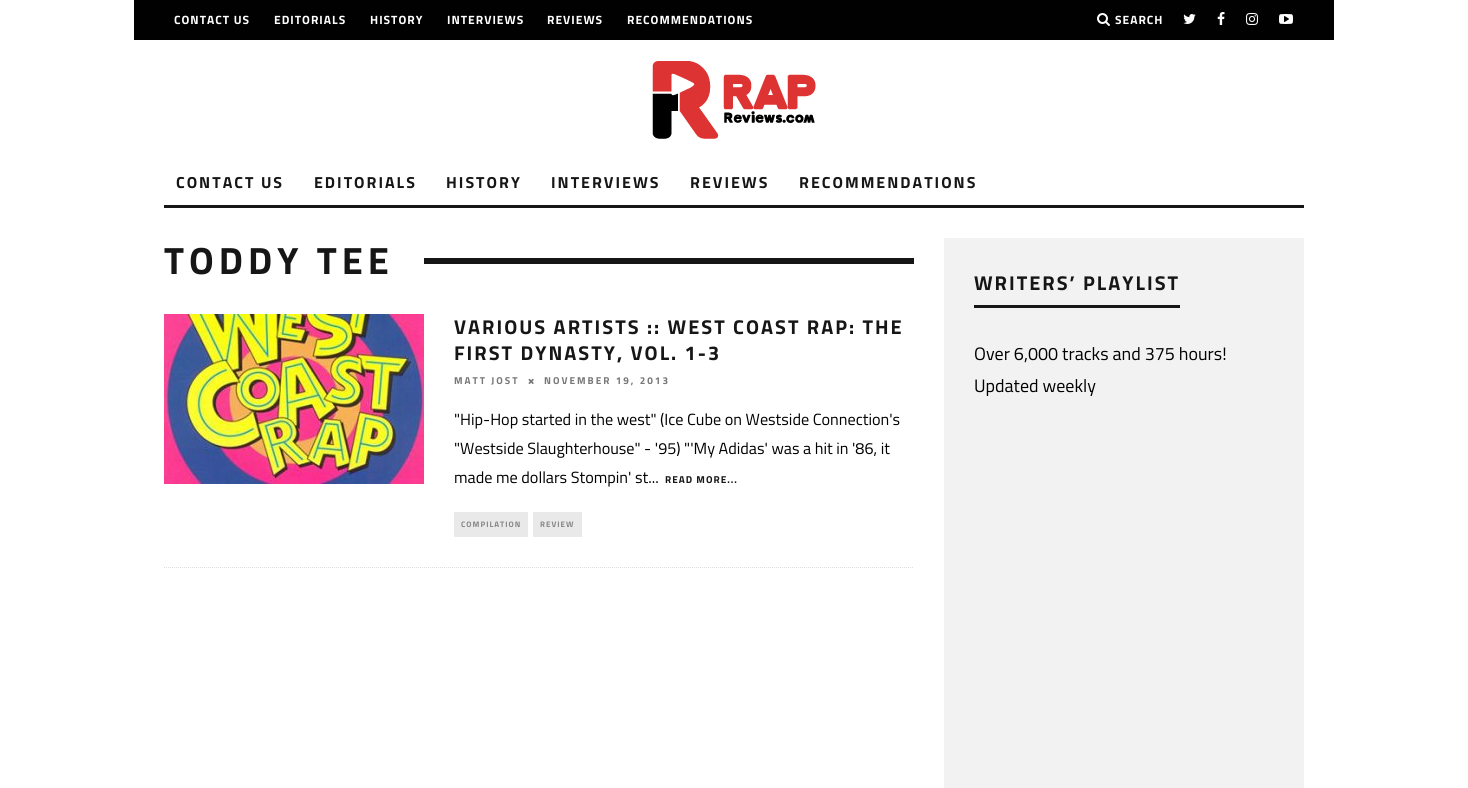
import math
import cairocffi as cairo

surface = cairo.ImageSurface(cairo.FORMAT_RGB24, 1468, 788)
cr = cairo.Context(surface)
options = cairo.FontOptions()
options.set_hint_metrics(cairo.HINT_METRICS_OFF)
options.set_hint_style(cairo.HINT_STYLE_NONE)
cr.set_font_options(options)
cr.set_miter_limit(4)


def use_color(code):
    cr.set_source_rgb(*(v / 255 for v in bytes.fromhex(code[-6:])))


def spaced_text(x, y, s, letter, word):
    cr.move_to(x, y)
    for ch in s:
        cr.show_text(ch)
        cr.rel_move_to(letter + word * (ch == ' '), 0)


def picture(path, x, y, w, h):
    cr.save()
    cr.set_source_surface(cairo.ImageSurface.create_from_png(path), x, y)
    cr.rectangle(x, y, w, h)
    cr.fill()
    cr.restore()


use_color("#ffffff")
cr.paint()
use_color("#010101")
cr.rectangle(134, 0, 1200, 40)
cr.fill()
cr.select_font_face("Titillium Web", cairo.FONT_SLANT_NORMAL, cairo.FONT_WEIGHT_BOLD)
cr.set_font_size(12)
use_color("#ffffff")
spaced_text(174, 24, "CONTACT US", 1, 0)
spaced_text(274, 24, "EDITORIALS", 1, 0)
spaced_text(370, 24, "HISTORY", 1, 0)
spaced_text(447, 24, "INTERVIEWS", 1, 0)
spaced_text(547, 24, "REVIEWS", 1, 0)
spaced_text(627, 24, "RECOMMENDATIONS", 1, 0)
picture("img1.png", 1097, 13, 13, 13)
spaced_text(1115, 24, "SEARCH", 1, 0)
picture("img2.png", 1183, 14, 13, 10)
picture("img3.png", 1217, 12, 8, 13)
picture("img4.png", 1246, 13, 12, 12)
picture("img5.png", 1279, 14, 14, 10)
picture("img6.png", 652, 61, 164, 78)
use_color("#161616")
cr.rectangle(164, 205, 1140, 3)
cr.fill()
cr.set_font_size(16)
spaced_text(176, 188, "CONTACT US", 2, 0)
spaced_text(314, 188, "EDITORIALS", 2, 0)
spaced_text(446, 188, "HISTORY", 2, 0)
spaced_text(551, 188, "INTERVIEWS", 2, 0)
spaced_text(690, 188, "REVIEWS", 2, 0)
spaced_text(799, 188, "RECOMMENDATIONS", 2, 0)
cr.set_font_size(38)
spaced_text(164, 274, "TODDY TEE", 5, 0)
cr.rectangle(424, 258, 490, 6)
cr.fill()
cr.new_path()
cr.move_to(164, 567.5)
cr.line_to(914, 567.5)
use_color("#dddddd")
cr.set_line_width(1)
cr.set_dash([1, 1])
cr.stroke()
picture("img7.png", 164, 314, 260, 170)
cr.set_font_size(20)
use_color("#161616")
spaced_text(454, 334, "VARIOUS ARTISTS :: WEST COAST RAP: THE", 2, 0)
spaced_text(454, 360, "FIRST DYNASTY, VOL. 1-3", 2, 0)
cr.set_font_size(10)
use_color("#777777")
spaced_text(454, 384, "MATT JOST", 2, 0)
picture("img8.png", 528, 378, 6, 6)
spaced_text(544, 384, "NOVEMBER 19, 2013", 2, 0)
cr.select_font_face("Titillium Web")
cr.set_font_size(16.2)
use_color("#000000")
cr.move_to(454, 425)
cr.show_text("\"Hip-Hop started in the west\" (Ice Cube on Westside Connection's")
cr.move_to(454, 454)
cr.show_text("\"Westside Slaughterhouse\" - '95) \"'My Adidas' was a hit in '86, it")
cr.move_to(454, 483)
cr.show_text("made me dollars Stompin' st...")
cr.select_font_face("Titillium Web", cairo.FONT_SLANT_NORMAL, cairo.FONT_WEIGHT_BOLD)
cr.set_font_size(10)
use_color("#161616")
spaced_text(665, 483, "READ MORE...", 1, 0)
use_color("#e9e9e9")
cr.rectangle(454, 512, 74, 25)
cr.fill()
cr.set_font_size(8)
use_color("#868686")
spaced_text(461, 527, "COMPILATION", 1, 0)
use_color("#e9e9e9")
cr.rectangle(533, 512, 49, 25)
cr.fill()
use_color("#868686")
spaced_text(540, 527, "REVIEW", 1, 0)
use_color("#f2f2f2")
cr.rectangle(944, 238, 360, 550)
cr.fill()
use_color("#161616")
cr.rectangle(974, 305, 206, 3)
cr.fill()
cr.set_font_size(20)
spaced_text(974, 290, "WRITERS’ PLAYLIST", 2, 0)
cr.select_font_face("Titillium Web")
cr.set_font_size(18)
use_color("#000000")
cr.move_to(974, 360)
cr.show_text("Over 6,000 tracks and 375 hours!")
cr.move_to(974, 392)
cr.show_text("Updated weekly")
surface.write_to_png("result.png")
